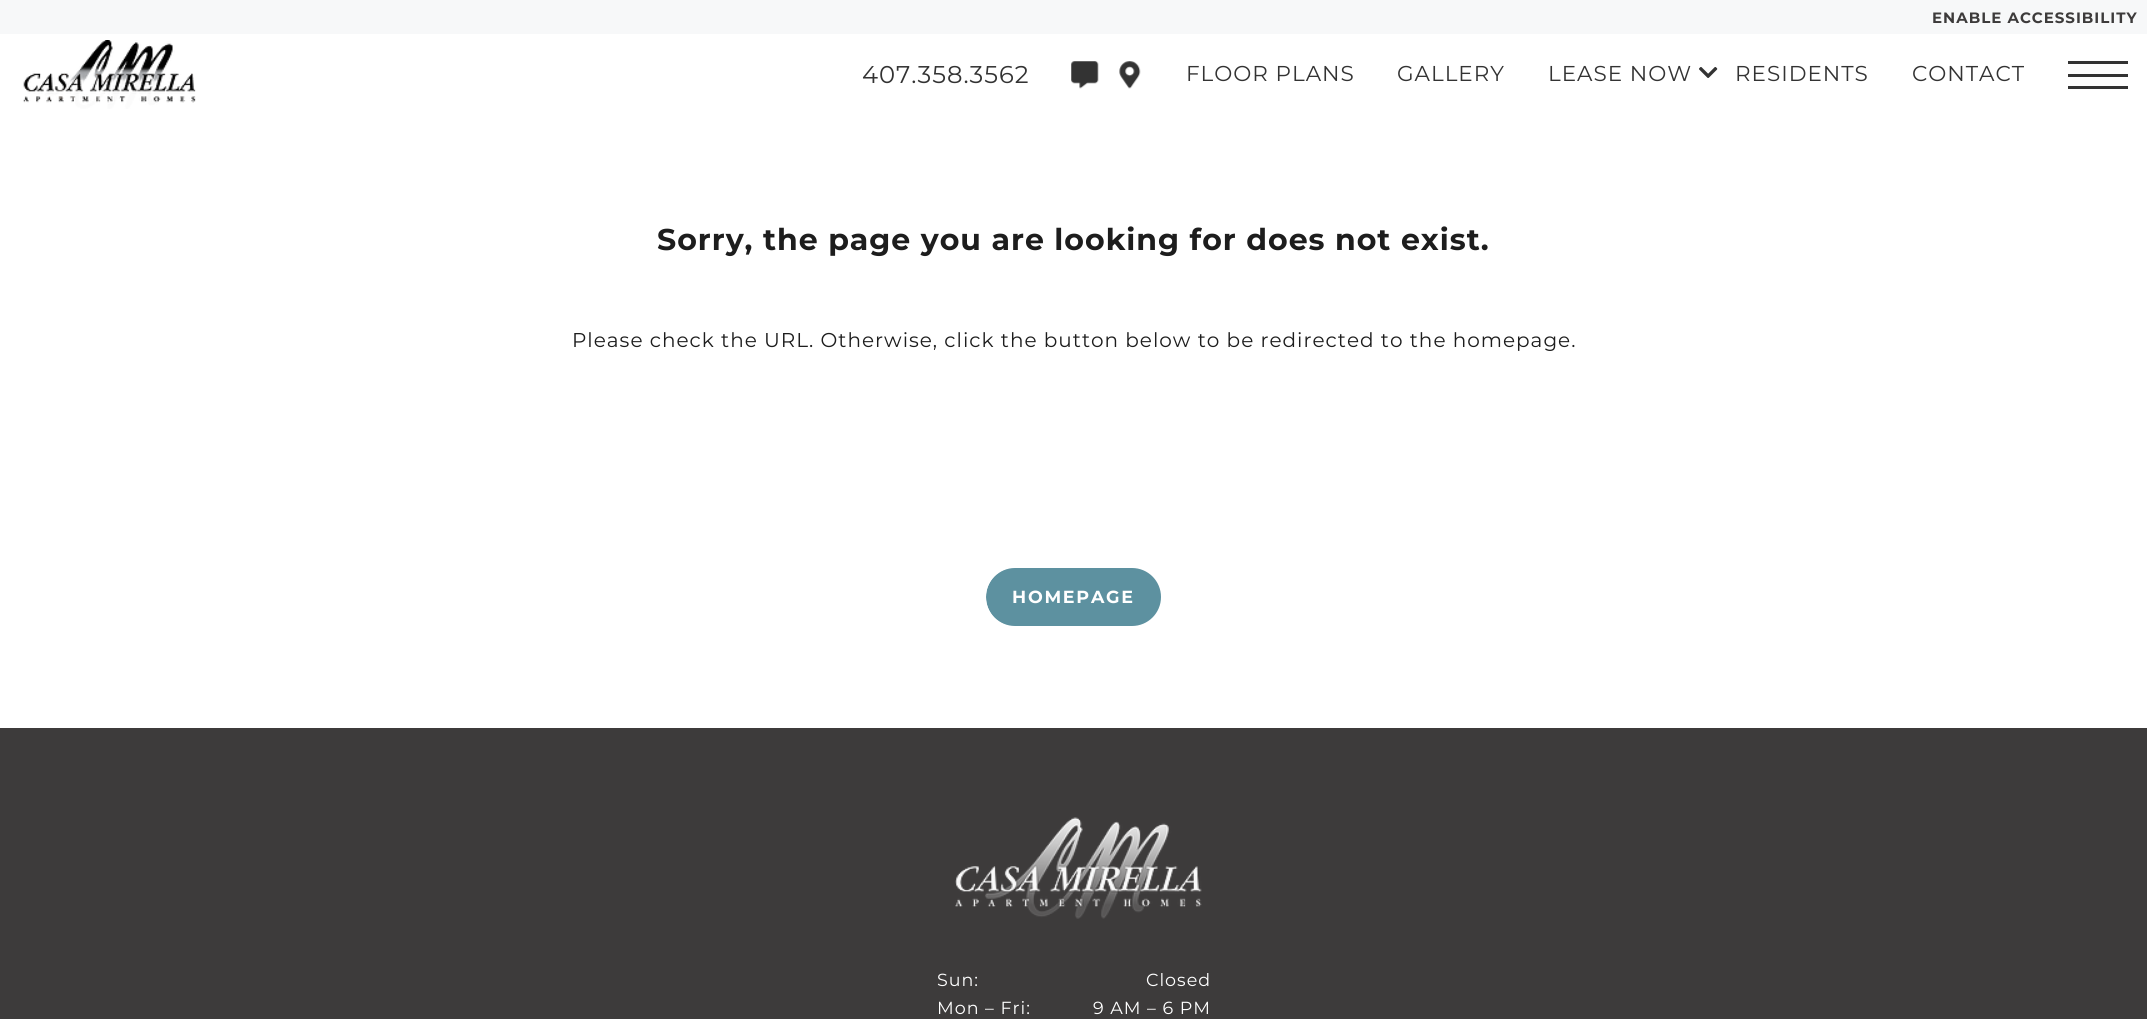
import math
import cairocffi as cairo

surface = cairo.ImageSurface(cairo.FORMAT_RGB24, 2147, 1019)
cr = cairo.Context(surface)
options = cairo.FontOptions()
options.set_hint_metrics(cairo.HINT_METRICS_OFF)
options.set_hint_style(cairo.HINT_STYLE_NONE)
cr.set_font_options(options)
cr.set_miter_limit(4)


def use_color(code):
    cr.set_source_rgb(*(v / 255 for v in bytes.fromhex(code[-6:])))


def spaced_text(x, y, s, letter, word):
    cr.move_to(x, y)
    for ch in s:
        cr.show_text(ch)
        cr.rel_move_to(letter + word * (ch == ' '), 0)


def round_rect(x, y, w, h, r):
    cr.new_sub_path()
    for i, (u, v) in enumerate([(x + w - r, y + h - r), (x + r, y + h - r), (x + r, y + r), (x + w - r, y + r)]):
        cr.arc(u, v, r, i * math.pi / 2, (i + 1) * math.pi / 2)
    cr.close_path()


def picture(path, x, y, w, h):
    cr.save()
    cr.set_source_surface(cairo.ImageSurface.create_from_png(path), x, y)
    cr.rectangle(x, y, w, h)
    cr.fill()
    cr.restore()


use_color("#ffffff")
cr.paint()
use_color("#f7f8f9")
cr.rectangle(0, 0, 2147, 34)
cr.fill()
cr.select_font_face("Montserrat", cairo.FONT_SLANT_NORMAL, cairo.FONT_WEIGHT_BOLD)
cr.set_font_size(15)
use_color("#3d3b3b")
spaced_text(1932, 23, "ENABLE ACCESSIBILITY", 1, 0)
picture("img1.png", 23, 40, 173, 69)
cr.select_font_face("Montserrat")
cr.set_font_size(24.25)
use_color("#333333")
spaced_text(862, 83, "407.358.3562", 1, 0)
picture("img2.png", 1071, 61, 28, 28)
picture("img3.png", 1119, 61, 22, 28)
cr.set_font_size(21.5)
spaced_text(1186, 81, "FLOOR PLANS", 1, 0)
spaced_text(1397, 81, "GALLERY", 1, 0)
spaced_text(1548, 81, "LEASE NOW", 1, 0)
picture("img4.png", 1699, 67, 19, 11)
spaced_text(1735, 81, "RESIDENTS", 1, 0)
spaced_text(1912, 81, "CONTACT", 1, 0)
cr.rectangle(2068, 61, 60, 3)
cr.fill()
cr.rectangle(2068, 74, 60, 3)
cr.fill()
cr.rectangle(2068, 86, 60, 3)
cr.fill()
cr.select_font_face("Montserrat", cairo.FONT_SLANT_NORMAL, cairo.FONT_WEIGHT_BOLD)
cr.set_font_size(30)
use_color("#1d1d1d")
spaced_text(657, 250, "Sorry, the page you are looking for does not exist.", 1, 0)
cr.select_font_face("Montserrat")
cr.set_font_size(20)
spaced_text(572, 347, "Please check the URL. Otherwise, click the button below to be redirected to the homepage.", 1, 0)
use_color("#5d91a0")
round_rect(986, 568, 175, 58, 29)
cr.fill()
round_rect(985.5, 566.5, 177, 61, 30.5)
use_color("#ffffff")
cr.set_line_width(1)
cr.stroke()
cr.select_font_face("Montserrat", cairo.FONT_SLANT_NORMAL, cairo.FONT_WEIGHT_BOLD)
cr.set_font_size(17.5)
spaced_text(1012, 603, "HOMEPAGE", 1.75, 0)
use_color("#3d3b3b")
cr.rectangle(0, 728, 2147, 291)
cr.fill()
picture("img5.png", 955, 817, 247, 102)
cr.select_font_face("Montserrat")
use_color("#ffffff")
spaced_text(937, 986, "Sun:", 1, 0)
spaced_text(1146, 986, "Closed", 1, 0)
spaced_text(937, 1014, "Mon – Fri:", 1, 0)
spaced_text(1093, 1014, "9 AM – 6 PM", 1, 0)
surface.write_to_png("result.png")
